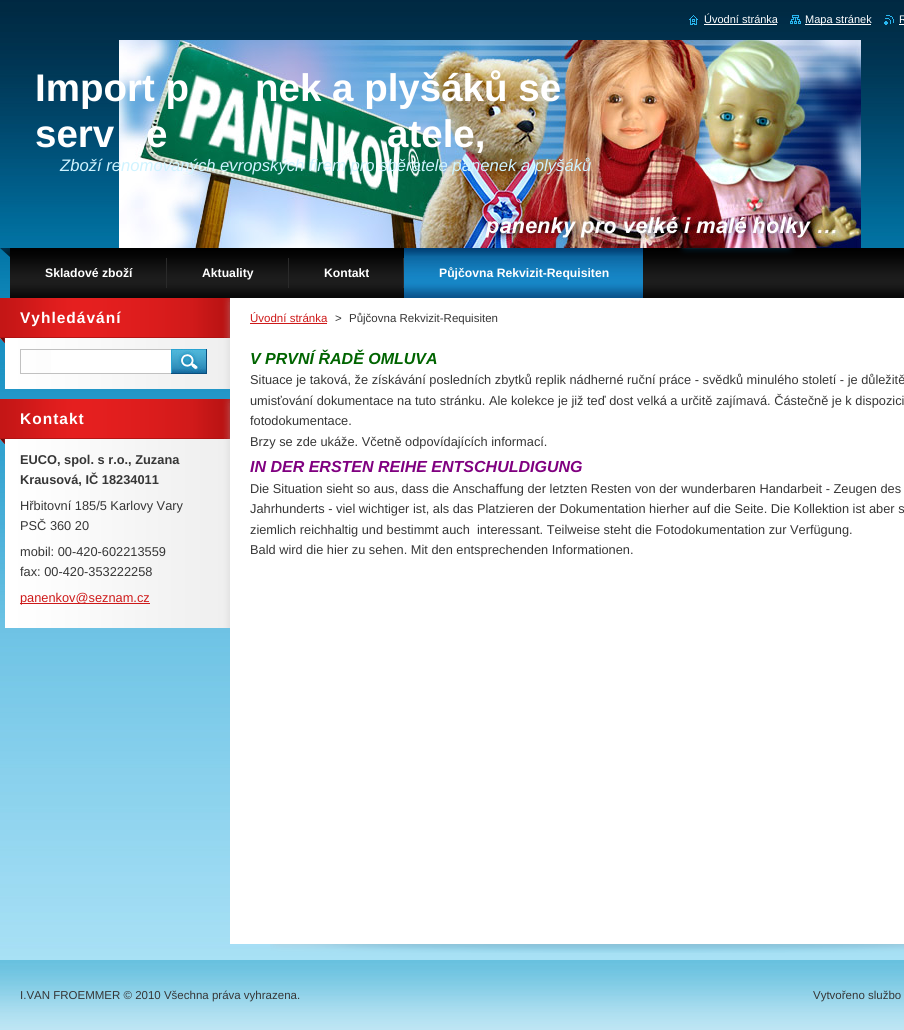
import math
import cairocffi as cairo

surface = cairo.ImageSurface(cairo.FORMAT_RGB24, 904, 1030)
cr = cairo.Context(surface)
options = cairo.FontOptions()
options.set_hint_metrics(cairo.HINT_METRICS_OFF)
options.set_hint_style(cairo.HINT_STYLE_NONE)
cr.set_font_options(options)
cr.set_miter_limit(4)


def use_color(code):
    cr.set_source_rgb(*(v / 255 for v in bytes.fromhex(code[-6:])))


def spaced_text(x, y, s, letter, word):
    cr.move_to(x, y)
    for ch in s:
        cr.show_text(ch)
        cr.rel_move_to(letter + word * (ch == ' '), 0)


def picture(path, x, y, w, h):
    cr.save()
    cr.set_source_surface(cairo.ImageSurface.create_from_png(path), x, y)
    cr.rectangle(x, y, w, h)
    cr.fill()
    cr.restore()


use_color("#ffffff")
cr.paint()
picture("img1.png", 0, 0, 904, 960)
picture("img2.png", 689, 15, 9, 10)
cr.select_font_face("Liberation Sans")
cr.set_font_size(11)
use_color("#ffffff")
cr.move_to(704, 23)
cr.show_text("Úvodní stránka")
cr.rectangle(704, 24, 73, 1)
cr.fill()
picture("img3.png", 790, 15, 11, 9)
cr.rectangle(805, 24, 66, 1)
cr.fill()
cr.move_to(805, 23)
cr.show_text("Mapa stránek")
picture("img4.png", 884, 15, 10, 10)
cr.move_to(899, 23)
cr.show_text("R")
cr.rectangle(899, 24, 5, 1)
cr.fill()
picture("img5.png", 119, 40, 742, 208)
cr.select_font_face("Liberation Sans", cairo.FONT_SLANT_NORMAL, cairo.FONT_WEIGHT_BOLD)
cr.set_font_size(38.5)
cr.move_to(35, 101)
cr.show_text("Import p")
cr.move_to(255, 101)
cr.show_text("nek a plyšáků se")
cr.move_to(35, 147)
cr.show_text("serv")
cr.move_to(146, 147)
cr.show_text("e")
cr.move_to(387, 147)
cr.show_text("atele,")
cr.select_font_face("Liberation Sans", cairo.FONT_SLANT_ITALIC)
cr.set_font_size(16.65)
use_color("#cff3ff")
cr.move_to(60, 171)
cr.show_text("Zboží renomovaných evropských firem pro sběratele panenek a plyšáků")
picture("img6.png", 0, 248, 904, 50)
use_color("#2a2a2a")
cr.rectangle(166, 258, 1, 30)
cr.fill()
cr.select_font_face("Liberation Sans", cairo.FONT_SLANT_NORMAL, cairo.FONT_WEIGHT_BOLD)
cr.set_font_size(12.2)
use_color("#ffffff")
cr.move_to(45, 277)
cr.show_text("Skladové zboží")
use_color("#2a2a2a")
cr.rectangle(288, 258, 1, 30)
cr.fill()
use_color("#ffffff")
cr.move_to(202, 277)
cr.show_text("Aktuality")
use_color("#2a2a2a")
cr.rectangle(403, 258, 1, 30)
cr.fill()
use_color("#ffffff")
cr.move_to(324, 277)
cr.show_text("Kontakt")
picture("img7.png", 404, 248, 239, 50)
cr.move_to(439, 277)
cr.show_text("Půjčovna Rekvizit-Requisiten")
picture("img8.png", 5, 343, 225, 46)
picture("img9.png", 0, 298, 230, 45)
cr.set_font_size(15.5)
spaced_text(20, 323, "Vyhledávání", 1, 0)
cr.rectangle(51, 350, 120, 23)
cr.fill()
cr.rectangle(20.5, 349.5, 151, 24)
use_color("#c1c1c1")
cr.set_line_width(1)
cr.stroke()
picture("img10.png", 171, 349, 36, 25)
picture("img11.png", 5, 444, 225, 184)
picture("img12.png", 0, 399, 230, 45)
use_color("#ffffff")
spaced_text(20, 424, "Kontakt", 1, 0)
cr.set_font_size(12.8)
use_color("#363636")
cr.move_to(20, 464)
cr.show_text("EUCO, spol. s r.o., Zuzana")
cr.move_to(20, 484)
cr.show_text("Krausová, IČ 18234011")
cr.select_font_face("Liberation Sans")
cr.move_to(20, 510)
cr.show_text("Hřbitovní 185/5 Karlovy Vary")
cr.move_to(20, 530)
cr.show_text("PSČ 360 20")
cr.move_to(20, 556)
cr.show_text("mobil: 00-420-602213559")
cr.move_to(20, 576)
cr.show_text("fax: 00-420-353222258")
use_color("#ce1919")
cr.rectangle(20, 603, 130, 1)
cr.fill()
cr.move_to(20, 602)
cr.show_text("panenkov@seznam.cz")
picture("img13.png", 270, 944, 634, 9)
use_color("#ffffff")
cr.rectangle(230, 298, 674, 646)
cr.fill()
cr.set_font_size(11.5)
use_color("#ce1919")
cr.move_to(250, 322)
cr.show_text("Úvodní stránka")
cr.rectangle(250, 323, 77, 1)
cr.fill()
use_color("#363636")
cr.move_to(335, 322)
cr.show_text(">")
cr.move_to(349, 322)
cr.show_text("Půjčovna Rekvizit-Requisiten")
cr.select_font_face("Liberation Sans", cairo.FONT_SLANT_ITALIC, cairo.FONT_WEIGHT_BOLD)
cr.set_font_size(16)
use_color("#006400")
cr.move_to(250, 364)
cr.show_text("V PRVNÍ ŘADĚ OMLUVA")
cr.select_font_face("Liberation Sans")
cr.set_font_size(12.8)
use_color("#363636")
cr.move_to(250, 384)
cr.show_text("Situace je taková, že získávání posledních zbytků replik nádherné ruční práce - svědků minulého století - je důležitě")
cr.move_to(250, 405)
cr.show_text("umisťování dokumentace na tuto stránku. Ale kolekce je již teď dost velká a určitě zajímavá. Částečně je k dispozici")
cr.move_to(250, 425)
cr.show_text("fotodokumentace.")
cr.move_to(250, 446)
cr.show_text("Brzy se zde ukáže. Včetně odpovídajících informací.")
cr.select_font_face("Liberation Sans", cairo.FONT_SLANT_ITALIC, cairo.FONT_WEIGHT_BOLD)
cr.set_font_size(16)
use_color("#800080")
cr.move_to(250, 472)
cr.show_text("IN DER ERSTEN REIHE ENTSCHULDIGUNG")
cr.select_font_face("Liberation Sans")
cr.set_font_size(12.8)
use_color("#363636")
cr.move_to(250, 493)
cr.show_text("Die Situation sieht so aus, dass die Anschaffung der letzten Resten von der wunderbaren Handarbeit - Zeugen des")
cr.move_to(250, 513)
cr.show_text("Jahrhunderts - viel wichtiger ist, als das Platzieren der Dokumentation hierher auf die Seite. Die Kollektion ist aber s")
cr.move_to(250, 534)
cr.show_text("ziemlich reichhaltig und bestimmt auch  interessant. Teilweise steht die Fotodokumentation zur Verfügung.")
cr.move_to(250, 554)
cr.show_text("Bald wird die hier zu sehen. Mit den entsprechenden Informationen.")
picture("img14.png", 0, 960, 904, 70)
cr.set_font_size(11.5)
cr.move_to(20, 999)
cr.show_text("I.VAN FROEMMER © 2010 Všechna práva vyhrazena.")
cr.move_to(813, 999)
cr.show_text("Vytvořeno službo")
surface.write_to_png("result.png")
